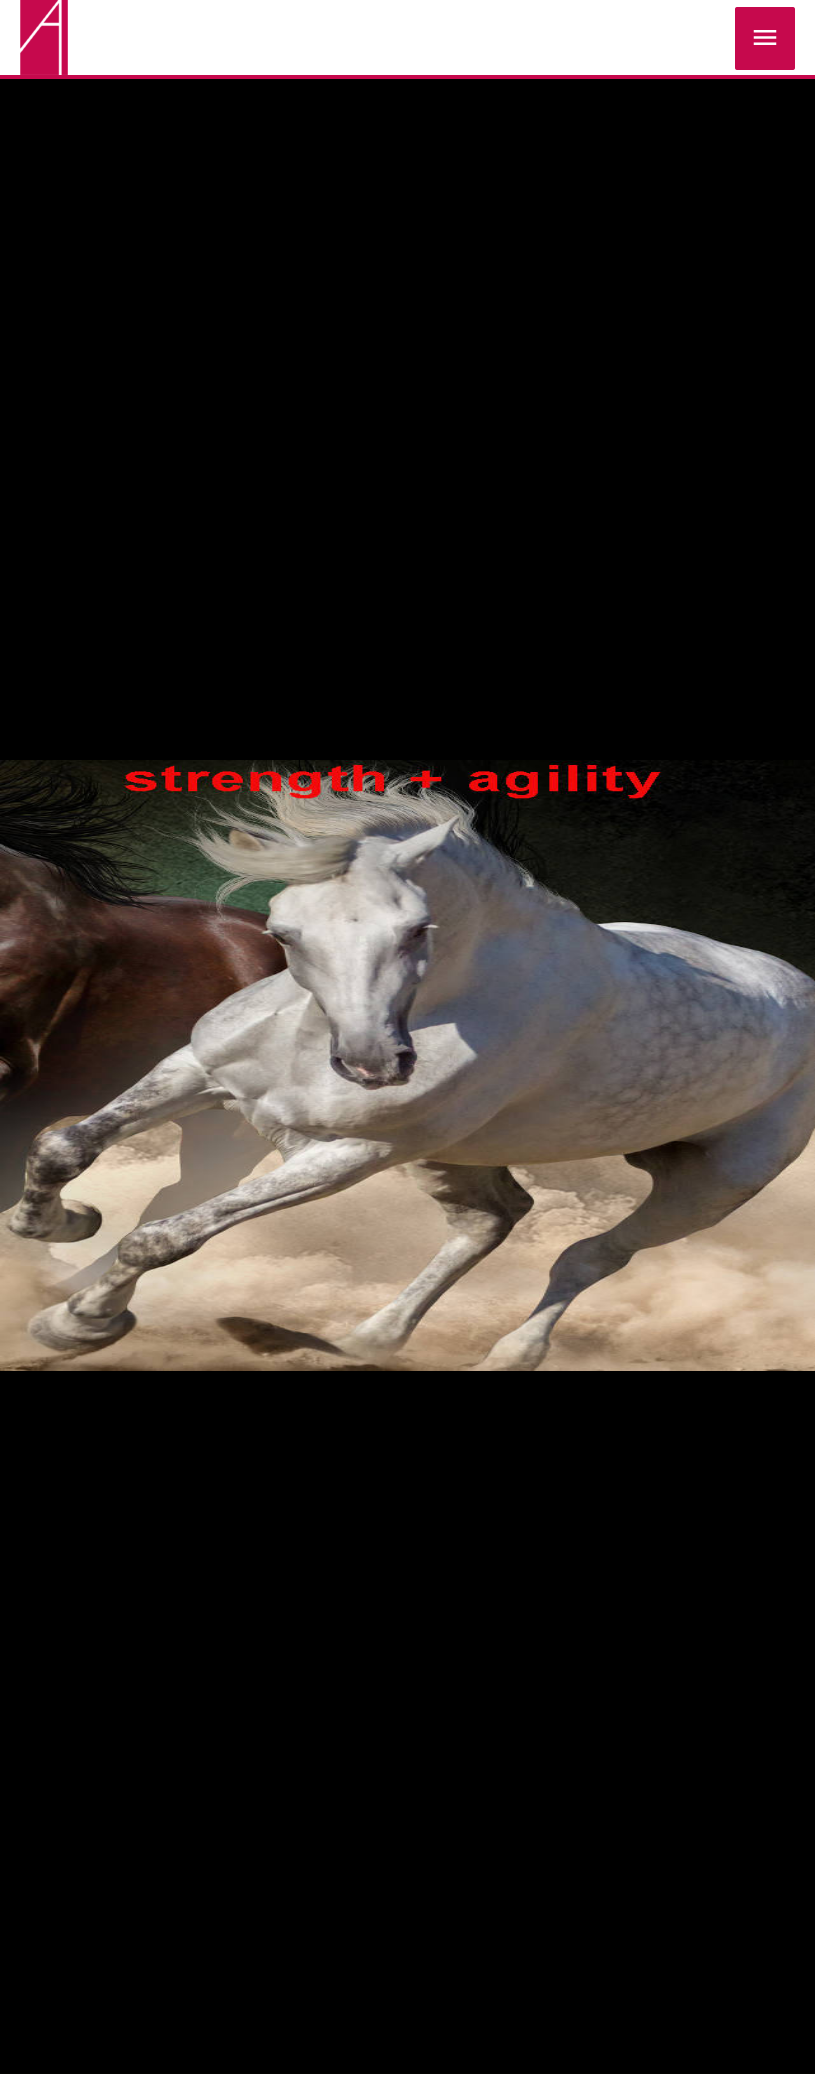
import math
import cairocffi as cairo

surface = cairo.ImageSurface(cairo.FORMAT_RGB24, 815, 2074)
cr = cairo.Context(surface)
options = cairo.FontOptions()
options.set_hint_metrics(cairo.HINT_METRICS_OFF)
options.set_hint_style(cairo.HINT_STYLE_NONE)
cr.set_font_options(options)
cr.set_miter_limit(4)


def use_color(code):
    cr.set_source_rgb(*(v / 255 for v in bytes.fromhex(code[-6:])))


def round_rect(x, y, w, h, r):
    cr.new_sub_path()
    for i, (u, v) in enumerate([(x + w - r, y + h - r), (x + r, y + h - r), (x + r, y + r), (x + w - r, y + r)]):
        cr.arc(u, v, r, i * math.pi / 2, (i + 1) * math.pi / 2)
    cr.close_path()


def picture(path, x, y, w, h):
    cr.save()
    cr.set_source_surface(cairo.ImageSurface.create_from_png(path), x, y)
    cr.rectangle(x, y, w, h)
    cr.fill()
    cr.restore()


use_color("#ffffff")
cr.paint()
picture("img1.png", 20, 0, 48, 75)
use_color("#c6094d")
round_rect(735, 7, 60, 63, 2)
cr.fill()
picture("img2.png", 753, 30, 24, 15)
use_color("#000000")
cr.rectangle(0, 79, 815, 1994)
cr.fill()
use_color("#c6094d")
cr.rectangle(0, 75, 815, 4)
cr.fill()
picture("img3.png", 0, 760, 815, 611)
use_color("#030400")
cr.rectangle(0, 2073, 815, 1)
cr.fill()
surface.write_to_png("result.png")
